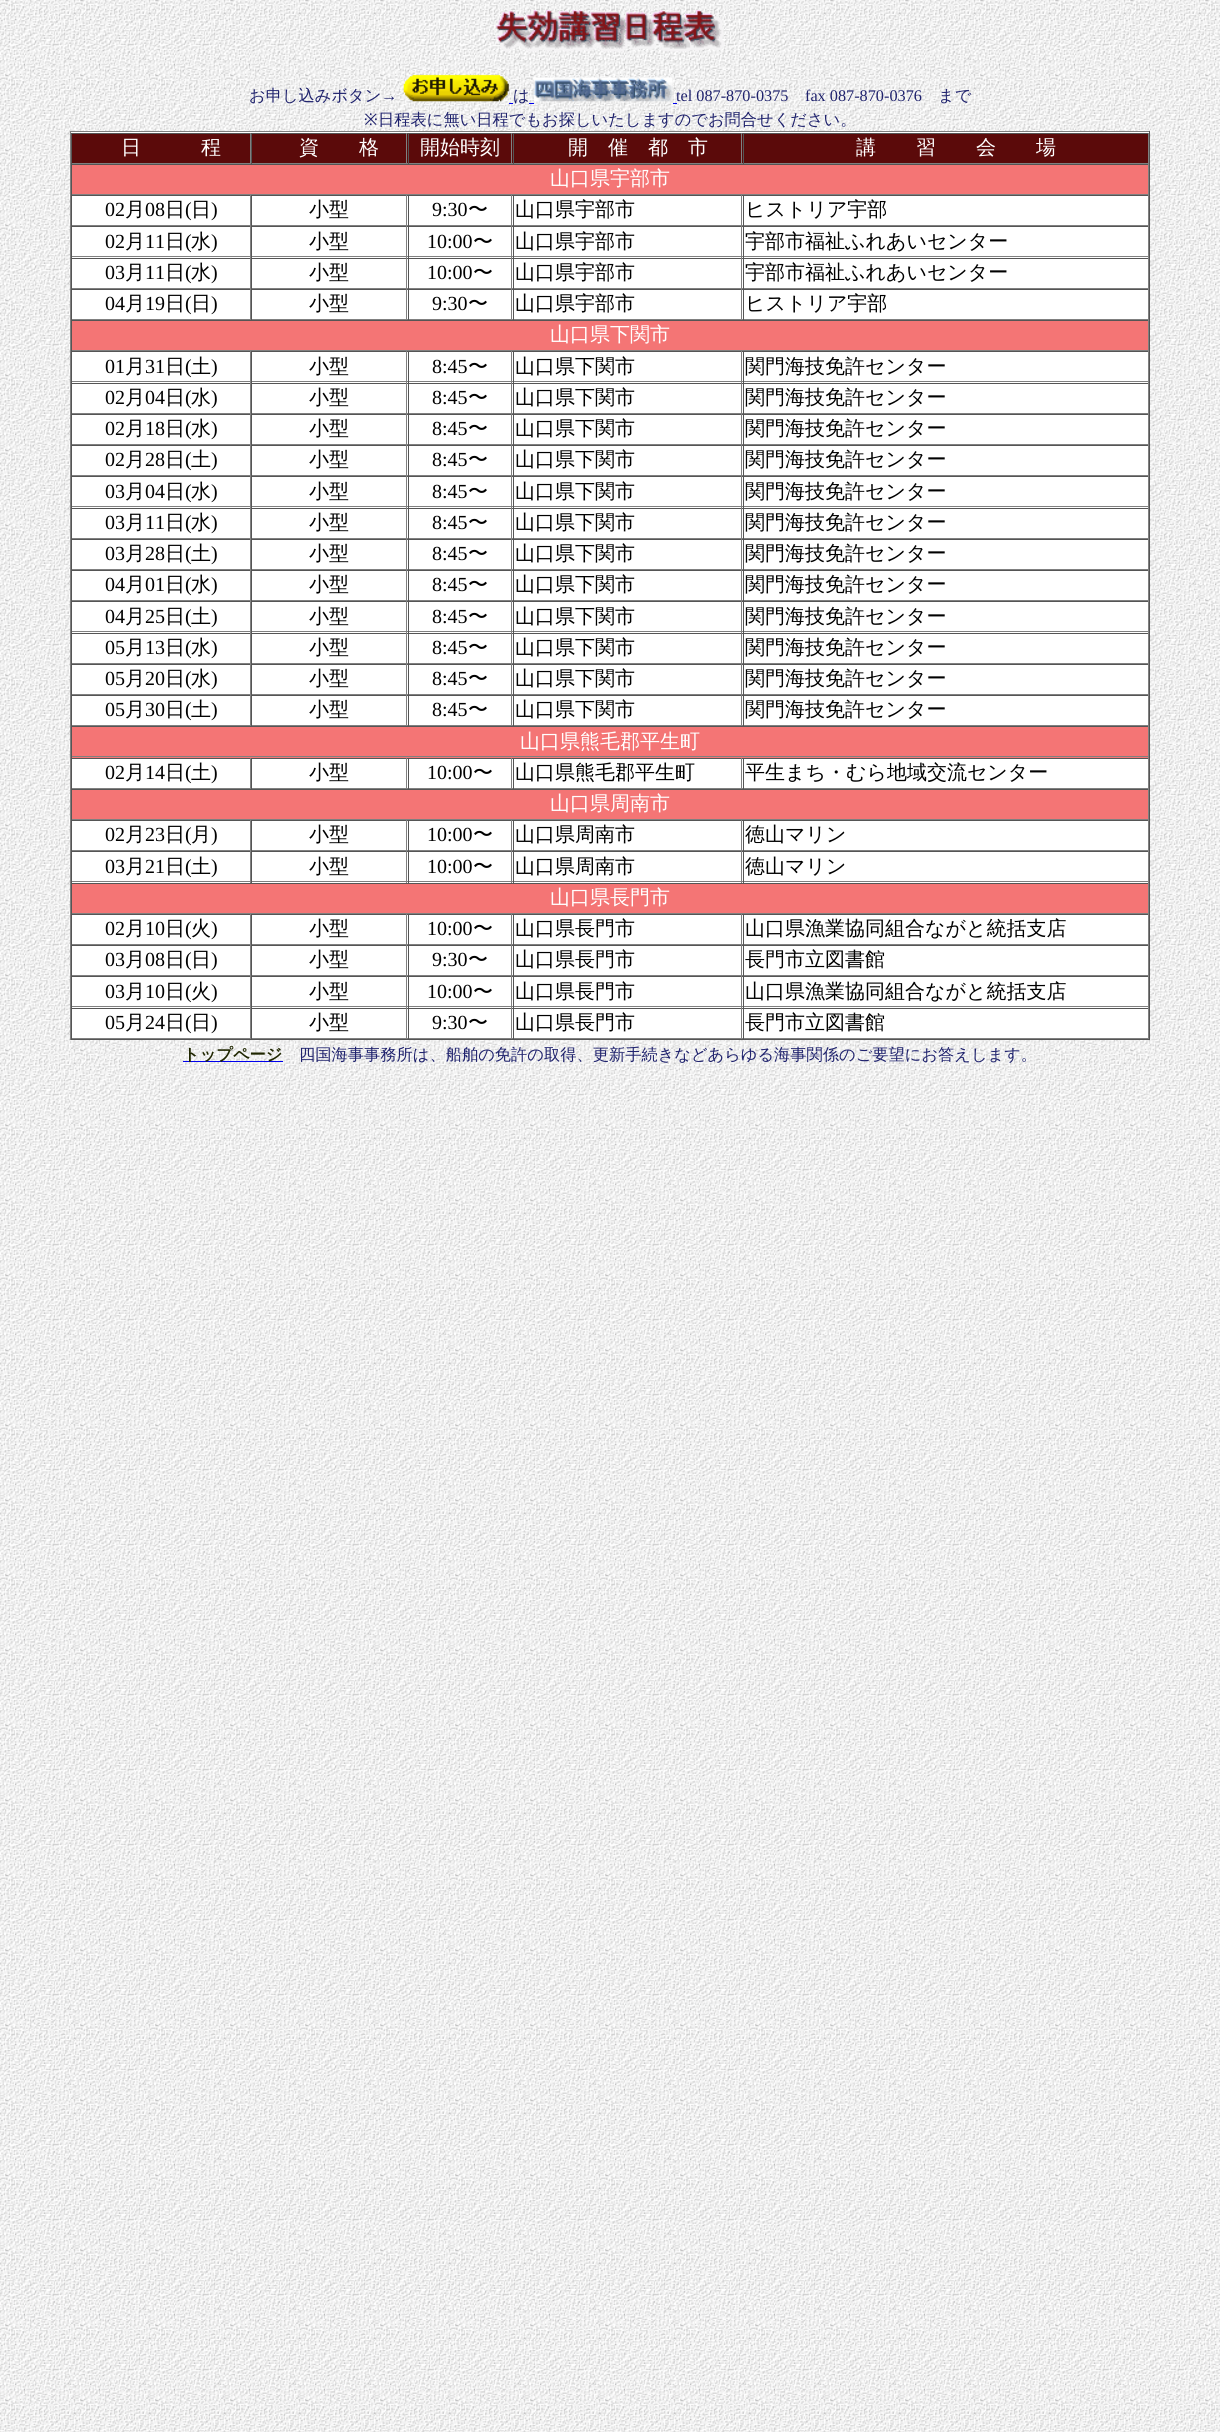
import math
import cairocffi as cairo

surface = cairo.ImageSurface(cairo.FORMAT_RGB24, 1220, 2432)
cr = cairo.Context(surface)
options = cairo.FontOptions()
options.set_hint_metrics(cairo.HINT_METRICS_OFF)
options.set_hint_style(cairo.HINT_STYLE_NONE)
cr.set_font_options(options)
cr.set_miter_limit(4)


def use_color(code):
    cr.set_source_rgb(*(v / 255 for v in bytes.fromhex(code[-6:])))


def picture(path, x, y, w, h):
    cr.save()
    cr.set_source_surface(cairo.ImageSurface.create_from_png(path), x, y)
    cr.rectangle(x, y, w, h)
    cr.fill()
    cr.restore()


use_color("#ffffff")
cr.paint()
picture("img1.png", 0, 0, 1220, 2432)
picture("img2.png", 495, 10, 230, 42)
cr.select_font_face("WenQuanYi Zen Hei Medium")
cr.set_font_size(16.25)
use_color("#1f226d")
cr.move_to(249, 101)
cr.show_text("お申し込みボタン")
picture("img3.png", 403, 74, 106, 28)
cr.move_to(513, 101)
cr.show_text("は")
use_color("#0000ee")
cr.rectangle(529, 103, 5, 1)
cr.fill()
picture("img4.png", 533, 77, 140, 25)
cr.select_font_face("Liberation Serif")
use_color("#1f226d")
cr.move_to(676, 101)
cr.show_text("tel 087-870-0375")
use_color("#0000ee")
cr.rectangle(673, 103, 4, 1)
cr.fill()
use_color("#1f226d")
cr.move_to(805, 101)
cr.show_text("fax 087-870-0376")
cr.select_font_face("WenQuanYi Zen Hei Medium")
cr.move_to(938, 101)
cr.show_text("まで")
use_color("#0000ee")
cr.rectangle(509, 103, 4, 1)
cr.fill()
cr.select_font_face("Noto Sans")
use_color("#1f226d")
cr.move_to(364, 125)
cr.show_text("※")
cr.select_font_face("WenQuanYi Zen Hei Medium")
cr.move_to(378, 125)
cr.show_text("日程表に無い日程でもお探しいたしますのでお問合せください。")
use_color("#ffffff")
cr.rectangle(71, 132, 1078, 906)
cr.fill()
use_color("#808080")
cr.rectangle(70, 131, 1080, 1)
cr.fill()
use_color("#555555")
cr.rectangle(1149, 131, 1, 909)
cr.fill()
cr.rectangle(70, 1039, 1080, 1)
cr.fill()
use_color("#808080")
cr.rectangle(70, 131, 1, 909)
cr.fill()
use_color("#5b0a0a")
cr.rectangle(72, 134, 1076, 29)
cr.fill()
use_color("#555555")
cr.rectangle(71, 133, 1078, 1)
cr.fill()
use_color("#808080")
cr.rectangle(250, 133, 1, 31)
cr.fill()
cr.rectangle(71, 163, 180, 1)
cr.fill()
use_color("#555555")
cr.rectangle(71, 133, 1, 31)
cr.fill()
cr.set_font_size(20)
use_color("#ffffff")
cr.move_to(121, 154)
cr.show_text("日　　　程")
use_color("#808080")
cr.rectangle(406, 133, 1, 31)
cr.fill()
cr.rectangle(251, 163, 157, 1)
cr.fill()
use_color("#555555")
cr.rectangle(251, 133, 1, 31)
cr.fill()
use_color("#ffffff")
cr.move_to(299, 154)
cr.show_text("資　　格")
use_color("#808080")
cr.rectangle(511, 133, 1, 31)
cr.fill()
cr.rectangle(408, 163, 105, 1)
cr.fill()
use_color("#555555")
cr.rectangle(408, 133, 1, 31)
cr.fill()
use_color("#ffffff")
cr.move_to(420, 154)
cr.show_text("開始時刻")
use_color("#808080")
cr.rectangle(741, 133, 1, 31)
cr.fill()
cr.rectangle(513, 163, 230, 1)
cr.fill()
use_color("#555555")
cr.rectangle(513, 133, 1, 31)
cr.fill()
use_color("#ffffff")
cr.move_to(568, 154)
cr.show_text("開　催　都　市")
use_color("#808080")
cr.rectangle(1148, 133, 1, 31)
cr.fill()
cr.rectangle(743, 163, 406, 1)
cr.fill()
use_color("#555555")
cr.rectangle(743, 133, 1, 31)
cr.fill()
use_color("#ffffff")
cr.move_to(856, 154)
cr.show_text("講　　習　　会　　場")
use_color("#f47575")
cr.rectangle(72, 165, 1076, 29)
cr.fill()
use_color("#555555")
cr.rectangle(71, 164, 1078, 1)
cr.fill()
use_color("#808080")
cr.rectangle(1148, 164, 1, 31)
cr.fill()
cr.rectangle(71, 194, 1078, 1)
cr.fill()
use_color("#555555")
cr.rectangle(71, 164, 1, 31)
cr.fill()
use_color("#ffffff")
cr.move_to(550, 185)
cr.show_text("山口県宇部市")
use_color("#555555")
cr.rectangle(71, 195, 1078, 1)
cr.fill()
use_color("#808080")
cr.rectangle(250, 195, 1, 31)
cr.fill()
cr.rectangle(71, 225, 180, 1)
cr.fill()
use_color("#555555")
cr.rectangle(71, 195, 1, 31)
cr.fill()
cr.select_font_face("Liberation Serif")
use_color("#000000")
cr.move_to(105, 216)
cr.show_text("02")
cr.select_font_face("WenQuanYi Zen Hei Medium")
cr.move_to(125, 216)
cr.show_text("月")
cr.select_font_face("Liberation Serif")
cr.move_to(145, 216)
cr.show_text("08")
cr.select_font_face("WenQuanYi Zen Hei Medium")
cr.move_to(165, 216)
cr.show_text("日")
cr.select_font_face("Liberation Serif")
cr.move_to(185, 216)
cr.show_text("(")
cr.select_font_face("WenQuanYi Zen Hei Medium")
cr.move_to(191, 216)
cr.show_text("日")
cr.select_font_face("Liberation Serif")
cr.move_to(211, 216)
cr.show_text(")")
use_color("#808080")
cr.rectangle(406, 195, 1, 31)
cr.fill()
cr.rectangle(251, 225, 157, 1)
cr.fill()
use_color("#555555")
cr.rectangle(251, 195, 1, 31)
cr.fill()
cr.select_font_face("WenQuanYi Zen Hei Medium")
use_color("#000000")
cr.move_to(309, 216)
cr.show_text("小型")
use_color("#808080")
cr.rectangle(511, 195, 1, 31)
cr.fill()
cr.rectangle(408, 225, 105, 1)
cr.fill()
use_color("#555555")
cr.rectangle(408, 195, 1, 31)
cr.fill()
cr.select_font_face("Liberation Serif")
use_color("#000000")
cr.move_to(432, 216)
cr.show_text("9:30")
cr.select_font_face("WenQuanYi Zen Hei Medium")
cr.move_to(468, 216)
cr.show_text("〜")
use_color("#808080")
cr.rectangle(741, 195, 1, 31)
cr.fill()
cr.rectangle(513, 225, 230, 1)
cr.fill()
use_color("#555555")
cr.rectangle(513, 195, 1, 31)
cr.fill()
use_color("#000000")
cr.move_to(515, 216)
cr.show_text("山口県宇部市")
use_color("#808080")
cr.rectangle(1148, 195, 1, 31)
cr.fill()
cr.rectangle(743, 225, 406, 1)
cr.fill()
use_color("#555555")
cr.rectangle(743, 195, 1, 31)
cr.fill()
use_color("#000000")
cr.move_to(745, 216)
cr.show_text("ヒストリア宇部")
use_color("#555555")
cr.rectangle(71, 226, 1078, 1)
cr.fill()
use_color("#808080")
cr.rectangle(250, 226, 1, 32)
cr.fill()
cr.rectangle(71, 256, 180, 1)
cr.fill()
use_color("#555555")
cr.rectangle(71, 226, 1, 32)
cr.fill()
cr.select_font_face("Liberation Serif")
use_color("#000000")
cr.move_to(105, 248)
cr.show_text("02")
cr.select_font_face("WenQuanYi Zen Hei Medium")
cr.move_to(125, 248)
cr.show_text("月")
cr.select_font_face("Liberation Serif")
cr.move_to(145, 248)
cr.show_text("11")
cr.select_font_face("WenQuanYi Zen Hei Medium")
cr.move_to(165, 248)
cr.show_text("日")
cr.select_font_face("Liberation Serif")
cr.move_to(185, 248)
cr.show_text("(")
cr.select_font_face("WenQuanYi Zen Hei Medium")
cr.move_to(191, 248)
cr.show_text("水")
cr.select_font_face("Liberation Serif")
cr.move_to(211, 248)
cr.show_text(")")
use_color("#808080")
cr.rectangle(406, 226, 1, 32)
cr.fill()
cr.rectangle(251, 256, 157, 1)
cr.fill()
use_color("#555555")
cr.rectangle(251, 226, 1, 32)
cr.fill()
cr.select_font_face("WenQuanYi Zen Hei Medium")
use_color("#000000")
cr.move_to(309, 248)
cr.show_text("小型")
use_color("#808080")
cr.rectangle(511, 226, 1, 32)
cr.fill()
cr.rectangle(408, 256, 105, 1)
cr.fill()
use_color("#555555")
cr.rectangle(408, 226, 1, 32)
cr.fill()
cr.select_font_face("Liberation Serif")
use_color("#000000")
cr.move_to(427, 248)
cr.show_text("10:00")
cr.select_font_face("WenQuanYi Zen Hei Medium")
cr.move_to(473, 248)
cr.show_text("〜")
use_color("#808080")
cr.rectangle(741, 226, 1, 32)
cr.fill()
cr.rectangle(513, 256, 230, 1)
cr.fill()
use_color("#555555")
cr.rectangle(513, 226, 1, 32)
cr.fill()
use_color("#000000")
cr.move_to(515, 248)
cr.show_text("山口県宇部市")
use_color("#808080")
cr.rectangle(1148, 226, 1, 32)
cr.fill()
cr.rectangle(743, 256, 406, 1)
cr.fill()
use_color("#555555")
cr.rectangle(743, 226, 1, 32)
cr.fill()
use_color("#000000")
cr.move_to(745, 248)
cr.show_text("宇部市福祉ふれあいセンター")
use_color("#555555")
cr.rectangle(71, 258, 1078, 1)
cr.fill()
use_color("#808080")
cr.rectangle(250, 258, 1, 31)
cr.fill()
cr.rectangle(71, 288, 180, 1)
cr.fill()
use_color("#555555")
cr.rectangle(71, 258, 1, 31)
cr.fill()
cr.select_font_face("Liberation Serif")
use_color("#000000")
cr.move_to(105, 279)
cr.show_text("03")
cr.select_font_face("WenQuanYi Zen Hei Medium")
cr.move_to(125, 279)
cr.show_text("月")
cr.select_font_face("Liberation Serif")
cr.move_to(145, 279)
cr.show_text("11")
cr.select_font_face("WenQuanYi Zen Hei Medium")
cr.move_to(165, 279)
cr.show_text("日")
cr.select_font_face("Liberation Serif")
cr.move_to(185, 279)
cr.show_text("(")
cr.select_font_face("WenQuanYi Zen Hei Medium")
cr.move_to(191, 279)
cr.show_text("水")
cr.select_font_face("Liberation Serif")
cr.move_to(211, 279)
cr.show_text(")")
use_color("#808080")
cr.rectangle(406, 258, 1, 31)
cr.fill()
cr.rectangle(251, 288, 157, 1)
cr.fill()
use_color("#555555")
cr.rectangle(251, 258, 1, 31)
cr.fill()
cr.select_font_face("WenQuanYi Zen Hei Medium")
use_color("#000000")
cr.move_to(309, 279)
cr.show_text("小型")
use_color("#808080")
cr.rectangle(511, 258, 1, 31)
cr.fill()
cr.rectangle(408, 288, 105, 1)
cr.fill()
use_color("#555555")
cr.rectangle(408, 258, 1, 31)
cr.fill()
cr.select_font_face("Liberation Serif")
use_color("#000000")
cr.move_to(427, 279)
cr.show_text("10:00")
cr.select_font_face("WenQuanYi Zen Hei Medium")
cr.move_to(473, 279)
cr.show_text("〜")
use_color("#808080")
cr.rectangle(741, 258, 1, 31)
cr.fill()
cr.rectangle(513, 288, 230, 1)
cr.fill()
use_color("#555555")
cr.rectangle(513, 258, 1, 31)
cr.fill()
use_color("#000000")
cr.move_to(515, 279)
cr.show_text("山口県宇部市")
use_color("#808080")
cr.rectangle(1148, 258, 1, 31)
cr.fill()
cr.rectangle(743, 288, 406, 1)
cr.fill()
use_color("#555555")
cr.rectangle(743, 258, 1, 31)
cr.fill()
use_color("#000000")
cr.move_to(745, 279)
cr.show_text("宇部市福祉ふれあいセンター")
use_color("#555555")
cr.rectangle(71, 289, 1078, 1)
cr.fill()
use_color("#808080")
cr.rectangle(250, 289, 1, 31)
cr.fill()
cr.rectangle(71, 319, 180, 1)
cr.fill()
use_color("#555555")
cr.rectangle(71, 289, 1, 31)
cr.fill()
cr.select_font_face("Liberation Serif")
use_color("#000000")
cr.move_to(105, 310)
cr.show_text("04")
cr.select_font_face("WenQuanYi Zen Hei Medium")
cr.move_to(125, 310)
cr.show_text("月")
cr.select_font_face("Liberation Serif")
cr.move_to(145, 310)
cr.show_text("19")
cr.select_font_face("WenQuanYi Zen Hei Medium")
cr.move_to(165, 310)
cr.show_text("日")
cr.select_font_face("Liberation Serif")
cr.move_to(185, 310)
cr.show_text("(")
cr.select_font_face("WenQuanYi Zen Hei Medium")
cr.move_to(191, 310)
cr.show_text("日")
cr.select_font_face("Liberation Serif")
cr.move_to(211, 310)
cr.show_text(")")
use_color("#808080")
cr.rectangle(406, 289, 1, 31)
cr.fill()
cr.rectangle(251, 319, 157, 1)
cr.fill()
use_color("#555555")
cr.rectangle(251, 289, 1, 31)
cr.fill()
cr.select_font_face("WenQuanYi Zen Hei Medium")
use_color("#000000")
cr.move_to(309, 310)
cr.show_text("小型")
use_color("#808080")
cr.rectangle(511, 289, 1, 31)
cr.fill()
cr.rectangle(408, 319, 105, 1)
cr.fill()
use_color("#555555")
cr.rectangle(408, 289, 1, 31)
cr.fill()
cr.select_font_face("Liberation Serif")
use_color("#000000")
cr.move_to(432, 310)
cr.show_text("9:30")
cr.select_font_face("WenQuanYi Zen Hei Medium")
cr.move_to(468, 310)
cr.show_text("〜")
use_color("#808080")
cr.rectangle(741, 289, 1, 31)
cr.fill()
cr.rectangle(513, 319, 230, 1)
cr.fill()
use_color("#555555")
cr.rectangle(513, 289, 1, 31)
cr.fill()
use_color("#000000")
cr.move_to(515, 310)
cr.show_text("山口県宇部市")
use_color("#808080")
cr.rectangle(1148, 289, 1, 31)
cr.fill()
cr.rectangle(743, 319, 406, 1)
cr.fill()
use_color("#555555")
cr.rectangle(743, 289, 1, 31)
cr.fill()
use_color("#000000")
cr.move_to(745, 310)
cr.show_text("ヒストリア宇部")
use_color("#f47575")
cr.rectangle(72, 321, 1076, 29)
cr.fill()
use_color("#555555")
cr.rectangle(71, 320, 1078, 1)
cr.fill()
use_color("#808080")
cr.rectangle(1148, 320, 1, 31)
cr.fill()
cr.rectangle(71, 350, 1078, 1)
cr.fill()
use_color("#555555")
cr.rectangle(71, 320, 1, 31)
cr.fill()
use_color("#ffffff")
cr.move_to(550, 341)
cr.show_text("山口県下関市")
use_color("#555555")
cr.rectangle(71, 351, 1078, 1)
cr.fill()
use_color("#808080")
cr.rectangle(250, 351, 1, 32)
cr.fill()
cr.rectangle(71, 381, 180, 1)
cr.fill()
use_color("#555555")
cr.rectangle(71, 351, 1, 32)
cr.fill()
cr.select_font_face("Liberation Serif")
use_color("#000000")
cr.move_to(105, 373)
cr.show_text("01")
cr.select_font_face("WenQuanYi Zen Hei Medium")
cr.move_to(125, 373)
cr.show_text("月")
cr.select_font_face("Liberation Serif")
cr.move_to(145, 373)
cr.show_text("31")
cr.select_font_face("WenQuanYi Zen Hei Medium")
cr.move_to(165, 373)
cr.show_text("日")
cr.select_font_face("Liberation Serif")
cr.move_to(185, 373)
cr.show_text("(")
cr.select_font_face("WenQuanYi Zen Hei Medium")
cr.move_to(191, 373)
cr.show_text("土")
cr.select_font_face("Liberation Serif")
cr.move_to(211, 373)
cr.show_text(")")
use_color("#808080")
cr.rectangle(406, 351, 1, 32)
cr.fill()
cr.rectangle(251, 381, 157, 1)
cr.fill()
use_color("#555555")
cr.rectangle(251, 351, 1, 32)
cr.fill()
cr.select_font_face("WenQuanYi Zen Hei Medium")
use_color("#000000")
cr.move_to(309, 373)
cr.show_text("小型")
use_color("#808080")
cr.rectangle(511, 351, 1, 32)
cr.fill()
cr.rectangle(408, 381, 105, 1)
cr.fill()
use_color("#555555")
cr.rectangle(408, 351, 1, 32)
cr.fill()
cr.select_font_face("Liberation Serif")
use_color("#000000")
cr.move_to(432, 373)
cr.show_text("8:45")
cr.select_font_face("WenQuanYi Zen Hei Medium")
cr.move_to(468, 373)
cr.show_text("〜")
use_color("#808080")
cr.rectangle(741, 351, 1, 32)
cr.fill()
cr.rectangle(513, 381, 230, 1)
cr.fill()
use_color("#555555")
cr.rectangle(513, 351, 1, 32)
cr.fill()
use_color("#000000")
cr.move_to(515, 373)
cr.show_text("山口県下関市")
use_color("#808080")
cr.rectangle(1148, 351, 1, 32)
cr.fill()
cr.rectangle(743, 381, 406, 1)
cr.fill()
use_color("#555555")
cr.rectangle(743, 351, 1, 32)
cr.fill()
use_color("#000000")
cr.move_to(745, 373)
cr.show_text("関門海技免許センター")
use_color("#555555")
cr.rectangle(71, 383, 1078, 1)
cr.fill()
use_color("#808080")
cr.rectangle(250, 383, 1, 31)
cr.fill()
cr.rectangle(71, 413, 180, 1)
cr.fill()
use_color("#555555")
cr.rectangle(71, 383, 1, 31)
cr.fill()
cr.select_font_face("Liberation Serif")
use_color("#000000")
cr.move_to(105, 404)
cr.show_text("02")
cr.select_font_face("WenQuanYi Zen Hei Medium")
cr.move_to(125, 404)
cr.show_text("月")
cr.select_font_face("Liberation Serif")
cr.move_to(145, 404)
cr.show_text("04")
cr.select_font_face("WenQuanYi Zen Hei Medium")
cr.move_to(165, 404)
cr.show_text("日")
cr.select_font_face("Liberation Serif")
cr.move_to(185, 404)
cr.show_text("(")
cr.select_font_face("WenQuanYi Zen Hei Medium")
cr.move_to(191, 404)
cr.show_text("水")
cr.select_font_face("Liberation Serif")
cr.move_to(211, 404)
cr.show_text(")")
use_color("#808080")
cr.rectangle(406, 383, 1, 31)
cr.fill()
cr.rectangle(251, 413, 157, 1)
cr.fill()
use_color("#555555")
cr.rectangle(251, 383, 1, 31)
cr.fill()
cr.select_font_face("WenQuanYi Zen Hei Medium")
use_color("#000000")
cr.move_to(309, 404)
cr.show_text("小型")
use_color("#808080")
cr.rectangle(511, 383, 1, 31)
cr.fill()
cr.rectangle(408, 413, 105, 1)
cr.fill()
use_color("#555555")
cr.rectangle(408, 383, 1, 31)
cr.fill()
cr.select_font_face("Liberation Serif")
use_color("#000000")
cr.move_to(432, 404)
cr.show_text("8:45")
cr.select_font_face("WenQuanYi Zen Hei Medium")
cr.move_to(468, 404)
cr.show_text("〜")
use_color("#808080")
cr.rectangle(741, 383, 1, 31)
cr.fill()
cr.rectangle(513, 413, 230, 1)
cr.fill()
use_color("#555555")
cr.rectangle(513, 383, 1, 31)
cr.fill()
use_color("#000000")
cr.move_to(515, 404)
cr.show_text("山口県下関市")
use_color("#808080")
cr.rectangle(1148, 383, 1, 31)
cr.fill()
cr.rectangle(743, 413, 406, 1)
cr.fill()
use_color("#555555")
cr.rectangle(743, 383, 1, 31)
cr.fill()
use_color("#000000")
cr.move_to(745, 404)
cr.show_text("関門海技免許センター")
use_color("#555555")
cr.rectangle(71, 414, 1078, 1)
cr.fill()
use_color("#808080")
cr.rectangle(250, 414, 1, 31)
cr.fill()
cr.rectangle(71, 444, 180, 1)
cr.fill()
use_color("#555555")
cr.rectangle(71, 414, 1, 31)
cr.fill()
cr.select_font_face("Liberation Serif")
use_color("#000000")
cr.move_to(105, 435)
cr.show_text("02")
cr.select_font_face("WenQuanYi Zen Hei Medium")
cr.move_to(125, 435)
cr.show_text("月")
cr.select_font_face("Liberation Serif")
cr.move_to(145, 435)
cr.show_text("18")
cr.select_font_face("WenQuanYi Zen Hei Medium")
cr.move_to(165, 435)
cr.show_text("日")
cr.select_font_face("Liberation Serif")
cr.move_to(185, 435)
cr.show_text("(")
cr.select_font_face("WenQuanYi Zen Hei Medium")
cr.move_to(191, 435)
cr.show_text("水")
cr.select_font_face("Liberation Serif")
cr.move_to(211, 435)
cr.show_text(")")
use_color("#808080")
cr.rectangle(406, 414, 1, 31)
cr.fill()
cr.rectangle(251, 444, 157, 1)
cr.fill()
use_color("#555555")
cr.rectangle(251, 414, 1, 31)
cr.fill()
cr.select_font_face("WenQuanYi Zen Hei Medium")
use_color("#000000")
cr.move_to(309, 435)
cr.show_text("小型")
use_color("#808080")
cr.rectangle(511, 414, 1, 31)
cr.fill()
cr.rectangle(408, 444, 105, 1)
cr.fill()
use_color("#555555")
cr.rectangle(408, 414, 1, 31)
cr.fill()
cr.select_font_face("Liberation Serif")
use_color("#000000")
cr.move_to(432, 435)
cr.show_text("8:45")
cr.select_font_face("WenQuanYi Zen Hei Medium")
cr.move_to(468, 435)
cr.show_text("〜")
use_color("#808080")
cr.rectangle(741, 414, 1, 31)
cr.fill()
cr.rectangle(513, 444, 230, 1)
cr.fill()
use_color("#555555")
cr.rectangle(513, 414, 1, 31)
cr.fill()
use_color("#000000")
cr.move_to(515, 435)
cr.show_text("山口県下関市")
use_color("#808080")
cr.rectangle(1148, 414, 1, 31)
cr.fill()
cr.rectangle(743, 444, 406, 1)
cr.fill()
use_color("#555555")
cr.rectangle(743, 414, 1, 31)
cr.fill()
use_color("#000000")
cr.move_to(745, 435)
cr.show_text("関門海技免許センター")
use_color("#555555")
cr.rectangle(71, 445, 1078, 1)
cr.fill()
use_color("#808080")
cr.rectangle(250, 445, 1, 31)
cr.fill()
cr.rectangle(71, 475, 180, 1)
cr.fill()
use_color("#555555")
cr.rectangle(71, 445, 1, 31)
cr.fill()
cr.select_font_face("Liberation Serif")
use_color("#000000")
cr.move_to(105, 466)
cr.show_text("02")
cr.select_font_face("WenQuanYi Zen Hei Medium")
cr.move_to(125, 466)
cr.show_text("月")
cr.select_font_face("Liberation Serif")
cr.move_to(145, 466)
cr.show_text("28")
cr.select_font_face("WenQuanYi Zen Hei Medium")
cr.move_to(165, 466)
cr.show_text("日")
cr.select_font_face("Liberation Serif")
cr.move_to(185, 466)
cr.show_text("(")
cr.select_font_face("WenQuanYi Zen Hei Medium")
cr.move_to(191, 466)
cr.show_text("土")
cr.select_font_face("Liberation Serif")
cr.move_to(211, 466)
cr.show_text(")")
use_color("#808080")
cr.rectangle(406, 445, 1, 31)
cr.fill()
cr.rectangle(251, 475, 157, 1)
cr.fill()
use_color("#555555")
cr.rectangle(251, 445, 1, 31)
cr.fill()
cr.select_font_face("WenQuanYi Zen Hei Medium")
use_color("#000000")
cr.move_to(309, 466)
cr.show_text("小型")
use_color("#808080")
cr.rectangle(511, 445, 1, 31)
cr.fill()
cr.rectangle(408, 475, 105, 1)
cr.fill()
use_color("#555555")
cr.rectangle(408, 445, 1, 31)
cr.fill()
cr.select_font_face("Liberation Serif")
use_color("#000000")
cr.move_to(432, 466)
cr.show_text("8:45")
cr.select_font_face("WenQuanYi Zen Hei Medium")
cr.move_to(468, 466)
cr.show_text("〜")
use_color("#808080")
cr.rectangle(741, 445, 1, 31)
cr.fill()
cr.rectangle(513, 475, 230, 1)
cr.fill()
use_color("#555555")
cr.rectangle(513, 445, 1, 31)
cr.fill()
use_color("#000000")
cr.move_to(515, 466)
cr.show_text("山口県下関市")
use_color("#808080")
cr.rectangle(1148, 445, 1, 31)
cr.fill()
cr.rectangle(743, 475, 406, 1)
cr.fill()
use_color("#555555")
cr.rectangle(743, 445, 1, 31)
cr.fill()
use_color("#000000")
cr.move_to(745, 466)
cr.show_text("関門海技免許センター")
use_color("#555555")
cr.rectangle(71, 476, 1078, 1)
cr.fill()
use_color("#808080")
cr.rectangle(250, 476, 1, 32)
cr.fill()
cr.rectangle(71, 506, 180, 1)
cr.fill()
use_color("#555555")
cr.rectangle(71, 476, 1, 32)
cr.fill()
cr.select_font_face("Liberation Serif")
use_color("#000000")
cr.move_to(105, 498)
cr.show_text("03")
cr.select_font_face("WenQuanYi Zen Hei Medium")
cr.move_to(125, 498)
cr.show_text("月")
cr.select_font_face("Liberation Serif")
cr.move_to(145, 498)
cr.show_text("04")
cr.select_font_face("WenQuanYi Zen Hei Medium")
cr.move_to(165, 498)
cr.show_text("日")
cr.select_font_face("Liberation Serif")
cr.move_to(185, 498)
cr.show_text("(")
cr.select_font_face("WenQuanYi Zen Hei Medium")
cr.move_to(191, 498)
cr.show_text("水")
cr.select_font_face("Liberation Serif")
cr.move_to(211, 498)
cr.show_text(")")
use_color("#808080")
cr.rectangle(406, 476, 1, 32)
cr.fill()
cr.rectangle(251, 506, 157, 1)
cr.fill()
use_color("#555555")
cr.rectangle(251, 476, 1, 32)
cr.fill()
cr.select_font_face("WenQuanYi Zen Hei Medium")
use_color("#000000")
cr.move_to(309, 498)
cr.show_text("小型")
use_color("#808080")
cr.rectangle(511, 476, 1, 32)
cr.fill()
cr.rectangle(408, 506, 105, 1)
cr.fill()
use_color("#555555")
cr.rectangle(408, 476, 1, 32)
cr.fill()
cr.select_font_face("Liberation Serif")
use_color("#000000")
cr.move_to(432, 498)
cr.show_text("8:45")
cr.select_font_face("WenQuanYi Zen Hei Medium")
cr.move_to(468, 498)
cr.show_text("〜")
use_color("#808080")
cr.rectangle(741, 476, 1, 32)
cr.fill()
cr.rectangle(513, 506, 230, 1)
cr.fill()
use_color("#555555")
cr.rectangle(513, 476, 1, 32)
cr.fill()
use_color("#000000")
cr.move_to(515, 498)
cr.show_text("山口県下関市")
use_color("#808080")
cr.rectangle(1148, 476, 1, 32)
cr.fill()
cr.rectangle(743, 506, 406, 1)
cr.fill()
use_color("#555555")
cr.rectangle(743, 476, 1, 32)
cr.fill()
use_color("#000000")
cr.move_to(745, 498)
cr.show_text("関門海技免許センター")
use_color("#555555")
cr.rectangle(71, 508, 1078, 1)
cr.fill()
use_color("#808080")
cr.rectangle(250, 508, 1, 31)
cr.fill()
cr.rectangle(71, 538, 180, 1)
cr.fill()
use_color("#555555")
cr.rectangle(71, 508, 1, 31)
cr.fill()
cr.select_font_face("Liberation Serif")
use_color("#000000")
cr.move_to(105, 529)
cr.show_text("03")
cr.select_font_face("WenQuanYi Zen Hei Medium")
cr.move_to(125, 529)
cr.show_text("月")
cr.select_font_face("Liberation Serif")
cr.move_to(145, 529)
cr.show_text("11")
cr.select_font_face("WenQuanYi Zen Hei Medium")
cr.move_to(165, 529)
cr.show_text("日")
cr.select_font_face("Liberation Serif")
cr.move_to(185, 529)
cr.show_text("(")
cr.select_font_face("WenQuanYi Zen Hei Medium")
cr.move_to(191, 529)
cr.show_text("水")
cr.select_font_face("Liberation Serif")
cr.move_to(211, 529)
cr.show_text(")")
use_color("#808080")
cr.rectangle(406, 508, 1, 31)
cr.fill()
cr.rectangle(251, 538, 157, 1)
cr.fill()
use_color("#555555")
cr.rectangle(251, 508, 1, 31)
cr.fill()
cr.select_font_face("WenQuanYi Zen Hei Medium")
use_color("#000000")
cr.move_to(309, 529)
cr.show_text("小型")
use_color("#808080")
cr.rectangle(511, 508, 1, 31)
cr.fill()
cr.rectangle(408, 538, 105, 1)
cr.fill()
use_color("#555555")
cr.rectangle(408, 508, 1, 31)
cr.fill()
cr.select_font_face("Liberation Serif")
use_color("#000000")
cr.move_to(432, 529)
cr.show_text("8:45")
cr.select_font_face("WenQuanYi Zen Hei Medium")
cr.move_to(468, 529)
cr.show_text("〜")
use_color("#808080")
cr.rectangle(741, 508, 1, 31)
cr.fill()
cr.rectangle(513, 538, 230, 1)
cr.fill()
use_color("#555555")
cr.rectangle(513, 508, 1, 31)
cr.fill()
use_color("#000000")
cr.move_to(515, 529)
cr.show_text("山口県下関市")
use_color("#808080")
cr.rectangle(1148, 508, 1, 31)
cr.fill()
cr.rectangle(743, 538, 406, 1)
cr.fill()
use_color("#555555")
cr.rectangle(743, 508, 1, 31)
cr.fill()
use_color("#000000")
cr.move_to(745, 529)
cr.show_text("関門海技免許センター")
use_color("#555555")
cr.rectangle(71, 539, 1078, 1)
cr.fill()
use_color("#808080")
cr.rectangle(250, 539, 1, 31)
cr.fill()
cr.rectangle(71, 569, 180, 1)
cr.fill()
use_color("#555555")
cr.rectangle(71, 539, 1, 31)
cr.fill()
cr.select_font_face("Liberation Serif")
use_color("#000000")
cr.move_to(105, 560)
cr.show_text("03")
cr.select_font_face("WenQuanYi Zen Hei Medium")
cr.move_to(125, 560)
cr.show_text("月")
cr.select_font_face("Liberation Serif")
cr.move_to(145, 560)
cr.show_text("28")
cr.select_font_face("WenQuanYi Zen Hei Medium")
cr.move_to(165, 560)
cr.show_text("日")
cr.select_font_face("Liberation Serif")
cr.move_to(185, 560)
cr.show_text("(")
cr.select_font_face("WenQuanYi Zen Hei Medium")
cr.move_to(191, 560)
cr.show_text("土")
cr.select_font_face("Liberation Serif")
cr.move_to(211, 560)
cr.show_text(")")
use_color("#808080")
cr.rectangle(406, 539, 1, 31)
cr.fill()
cr.rectangle(251, 569, 157, 1)
cr.fill()
use_color("#555555")
cr.rectangle(251, 539, 1, 31)
cr.fill()
cr.select_font_face("WenQuanYi Zen Hei Medium")
use_color("#000000")
cr.move_to(309, 560)
cr.show_text("小型")
use_color("#808080")
cr.rectangle(511, 539, 1, 31)
cr.fill()
cr.rectangle(408, 569, 105, 1)
cr.fill()
use_color("#555555")
cr.rectangle(408, 539, 1, 31)
cr.fill()
cr.select_font_face("Liberation Serif")
use_color("#000000")
cr.move_to(432, 560)
cr.show_text("8:45")
cr.select_font_face("WenQuanYi Zen Hei Medium")
cr.move_to(468, 560)
cr.show_text("〜")
use_color("#808080")
cr.rectangle(741, 539, 1, 31)
cr.fill()
cr.rectangle(513, 569, 230, 1)
cr.fill()
use_color("#555555")
cr.rectangle(513, 539, 1, 31)
cr.fill()
use_color("#000000")
cr.move_to(515, 560)
cr.show_text("山口県下関市")
use_color("#808080")
cr.rectangle(1148, 539, 1, 31)
cr.fill()
cr.rectangle(743, 569, 406, 1)
cr.fill()
use_color("#555555")
cr.rectangle(743, 539, 1, 31)
cr.fill()
use_color("#000000")
cr.move_to(745, 560)
cr.show_text("関門海技免許センター")
use_color("#555555")
cr.rectangle(71, 570, 1078, 1)
cr.fill()
use_color("#808080")
cr.rectangle(250, 570, 1, 31)
cr.fill()
cr.rectangle(71, 600, 180, 1)
cr.fill()
use_color("#555555")
cr.rectangle(71, 570, 1, 31)
cr.fill()
cr.select_font_face("Liberation Serif")
use_color("#000000")
cr.move_to(105, 591)
cr.show_text("04")
cr.select_font_face("WenQuanYi Zen Hei Medium")
cr.move_to(125, 591)
cr.show_text("月")
cr.select_font_face("Liberation Serif")
cr.move_to(145, 591)
cr.show_text("01")
cr.select_font_face("WenQuanYi Zen Hei Medium")
cr.move_to(165, 591)
cr.show_text("日")
cr.select_font_face("Liberation Serif")
cr.move_to(185, 591)
cr.show_text("(")
cr.select_font_face("WenQuanYi Zen Hei Medium")
cr.move_to(191, 591)
cr.show_text("水")
cr.select_font_face("Liberation Serif")
cr.move_to(211, 591)
cr.show_text(")")
use_color("#808080")
cr.rectangle(406, 570, 1, 31)
cr.fill()
cr.rectangle(251, 600, 157, 1)
cr.fill()
use_color("#555555")
cr.rectangle(251, 570, 1, 31)
cr.fill()
cr.select_font_face("WenQuanYi Zen Hei Medium")
use_color("#000000")
cr.move_to(309, 591)
cr.show_text("小型")
use_color("#808080")
cr.rectangle(511, 570, 1, 31)
cr.fill()
cr.rectangle(408, 600, 105, 1)
cr.fill()
use_color("#555555")
cr.rectangle(408, 570, 1, 31)
cr.fill()
cr.select_font_face("Liberation Serif")
use_color("#000000")
cr.move_to(432, 591)
cr.show_text("8:45")
cr.select_font_face("WenQuanYi Zen Hei Medium")
cr.move_to(468, 591)
cr.show_text("〜")
use_color("#808080")
cr.rectangle(741, 570, 1, 31)
cr.fill()
cr.rectangle(513, 600, 230, 1)
cr.fill()
use_color("#555555")
cr.rectangle(513, 570, 1, 31)
cr.fill()
use_color("#000000")
cr.move_to(515, 591)
cr.show_text("山口県下関市")
use_color("#808080")
cr.rectangle(1148, 570, 1, 31)
cr.fill()
cr.rectangle(743, 600, 406, 1)
cr.fill()
use_color("#555555")
cr.rectangle(743, 570, 1, 31)
cr.fill()
use_color("#000000")
cr.move_to(745, 591)
cr.show_text("関門海技免許センター")
use_color("#555555")
cr.rectangle(71, 601, 1078, 1)
cr.fill()
use_color("#808080")
cr.rectangle(250, 601, 1, 32)
cr.fill()
cr.rectangle(71, 631, 180, 1)
cr.fill()
use_color("#555555")
cr.rectangle(71, 601, 1, 32)
cr.fill()
cr.select_font_face("Liberation Serif")
use_color("#000000")
cr.move_to(105, 623)
cr.show_text("04")
cr.select_font_face("WenQuanYi Zen Hei Medium")
cr.move_to(125, 623)
cr.show_text("月")
cr.select_font_face("Liberation Serif")
cr.move_to(145, 623)
cr.show_text("25")
cr.select_font_face("WenQuanYi Zen Hei Medium")
cr.move_to(165, 623)
cr.show_text("日")
cr.select_font_face("Liberation Serif")
cr.move_to(185, 623)
cr.show_text("(")
cr.select_font_face("WenQuanYi Zen Hei Medium")
cr.move_to(191, 623)
cr.show_text("土")
cr.select_font_face("Liberation Serif")
cr.move_to(211, 623)
cr.show_text(")")
use_color("#808080")
cr.rectangle(406, 601, 1, 32)
cr.fill()
cr.rectangle(251, 631, 157, 1)
cr.fill()
use_color("#555555")
cr.rectangle(251, 601, 1, 32)
cr.fill()
cr.select_font_face("WenQuanYi Zen Hei Medium")
use_color("#000000")
cr.move_to(309, 623)
cr.show_text("小型")
use_color("#808080")
cr.rectangle(511, 601, 1, 32)
cr.fill()
cr.rectangle(408, 631, 105, 1)
cr.fill()
use_color("#555555")
cr.rectangle(408, 601, 1, 32)
cr.fill()
cr.select_font_face("Liberation Serif")
use_color("#000000")
cr.move_to(432, 623)
cr.show_text("8:45")
cr.select_font_face("WenQuanYi Zen Hei Medium")
cr.move_to(468, 623)
cr.show_text("〜")
use_color("#808080")
cr.rectangle(741, 601, 1, 32)
cr.fill()
cr.rectangle(513, 631, 230, 1)
cr.fill()
use_color("#555555")
cr.rectangle(513, 601, 1, 32)
cr.fill()
use_color("#000000")
cr.move_to(515, 623)
cr.show_text("山口県下関市")
use_color("#808080")
cr.rectangle(1148, 601, 1, 32)
cr.fill()
cr.rectangle(743, 631, 406, 1)
cr.fill()
use_color("#555555")
cr.rectangle(743, 601, 1, 32)
cr.fill()
use_color("#000000")
cr.move_to(745, 623)
cr.show_text("関門海技免許センター")
use_color("#555555")
cr.rectangle(71, 633, 1078, 1)
cr.fill()
use_color("#808080")
cr.rectangle(250, 633, 1, 31)
cr.fill()
cr.rectangle(71, 663, 180, 1)
cr.fill()
use_color("#555555")
cr.rectangle(71, 633, 1, 31)
cr.fill()
cr.select_font_face("Liberation Serif")
use_color("#000000")
cr.move_to(105, 654)
cr.show_text("05")
cr.select_font_face("WenQuanYi Zen Hei Medium")
cr.move_to(125, 654)
cr.show_text("月")
cr.select_font_face("Liberation Serif")
cr.move_to(145, 654)
cr.show_text("13")
cr.select_font_face("WenQuanYi Zen Hei Medium")
cr.move_to(165, 654)
cr.show_text("日")
cr.select_font_face("Liberation Serif")
cr.move_to(185, 654)
cr.show_text("(")
cr.select_font_face("WenQuanYi Zen Hei Medium")
cr.move_to(191, 654)
cr.show_text("水")
cr.select_font_face("Liberation Serif")
cr.move_to(211, 654)
cr.show_text(")")
use_color("#808080")
cr.rectangle(406, 633, 1, 31)
cr.fill()
cr.rectangle(251, 663, 157, 1)
cr.fill()
use_color("#555555")
cr.rectangle(251, 633, 1, 31)
cr.fill()
cr.select_font_face("WenQuanYi Zen Hei Medium")
use_color("#000000")
cr.move_to(309, 654)
cr.show_text("小型")
use_color("#808080")
cr.rectangle(511, 633, 1, 31)
cr.fill()
cr.rectangle(408, 663, 105, 1)
cr.fill()
use_color("#555555")
cr.rectangle(408, 633, 1, 31)
cr.fill()
cr.select_font_face("Liberation Serif")
use_color("#000000")
cr.move_to(432, 654)
cr.show_text("8:45")
cr.select_font_face("WenQuanYi Zen Hei Medium")
cr.move_to(468, 654)
cr.show_text("〜")
use_color("#808080")
cr.rectangle(741, 633, 1, 31)
cr.fill()
cr.rectangle(513, 663, 230, 1)
cr.fill()
use_color("#555555")
cr.rectangle(513, 633, 1, 31)
cr.fill()
use_color("#000000")
cr.move_to(515, 654)
cr.show_text("山口県下関市")
use_color("#808080")
cr.rectangle(1148, 633, 1, 31)
cr.fill()
cr.rectangle(743, 663, 406, 1)
cr.fill()
use_color("#555555")
cr.rectangle(743, 633, 1, 31)
cr.fill()
use_color("#000000")
cr.move_to(745, 654)
cr.show_text("関門海技免許センター")
use_color("#555555")
cr.rectangle(71, 664, 1078, 1)
cr.fill()
use_color("#808080")
cr.rectangle(250, 664, 1, 31)
cr.fill()
cr.rectangle(71, 694, 180, 1)
cr.fill()
use_color("#555555")
cr.rectangle(71, 664, 1, 31)
cr.fill()
cr.select_font_face("Liberation Serif")
use_color("#000000")
cr.move_to(105, 685)
cr.show_text("05")
cr.select_font_face("WenQuanYi Zen Hei Medium")
cr.move_to(125, 685)
cr.show_text("月")
cr.select_font_face("Liberation Serif")
cr.move_to(145, 685)
cr.show_text("20")
cr.select_font_face("WenQuanYi Zen Hei Medium")
cr.move_to(165, 685)
cr.show_text("日")
cr.select_font_face("Liberation Serif")
cr.move_to(185, 685)
cr.show_text("(")
cr.select_font_face("WenQuanYi Zen Hei Medium")
cr.move_to(191, 685)
cr.show_text("水")
cr.select_font_face("Liberation Serif")
cr.move_to(211, 685)
cr.show_text(")")
use_color("#808080")
cr.rectangle(406, 664, 1, 31)
cr.fill()
cr.rectangle(251, 694, 157, 1)
cr.fill()
use_color("#555555")
cr.rectangle(251, 664, 1, 31)
cr.fill()
cr.select_font_face("WenQuanYi Zen Hei Medium")
use_color("#000000")
cr.move_to(309, 685)
cr.show_text("小型")
use_color("#808080")
cr.rectangle(511, 664, 1, 31)
cr.fill()
cr.rectangle(408, 694, 105, 1)
cr.fill()
use_color("#555555")
cr.rectangle(408, 664, 1, 31)
cr.fill()
cr.select_font_face("Liberation Serif")
use_color("#000000")
cr.move_to(432, 685)
cr.show_text("8:45")
cr.select_font_face("WenQuanYi Zen Hei Medium")
cr.move_to(468, 685)
cr.show_text("〜")
use_color("#808080")
cr.rectangle(741, 664, 1, 31)
cr.fill()
cr.rectangle(513, 694, 230, 1)
cr.fill()
use_color("#555555")
cr.rectangle(513, 664, 1, 31)
cr.fill()
use_color("#000000")
cr.move_to(515, 685)
cr.show_text("山口県下関市")
use_color("#808080")
cr.rectangle(1148, 664, 1, 31)
cr.fill()
cr.rectangle(743, 694, 406, 1)
cr.fill()
use_color("#555555")
cr.rectangle(743, 664, 1, 31)
cr.fill()
use_color("#000000")
cr.move_to(745, 685)
cr.show_text("関門海技免許センター")
use_color("#555555")
cr.rectangle(71, 695, 1078, 1)
cr.fill()
use_color("#808080")
cr.rectangle(250, 695, 1, 31)
cr.fill()
cr.rectangle(71, 725, 180, 1)
cr.fill()
use_color("#555555")
cr.rectangle(71, 695, 1, 31)
cr.fill()
cr.select_font_face("Liberation Serif")
use_color("#000000")
cr.move_to(105, 716)
cr.show_text("05")
cr.select_font_face("WenQuanYi Zen Hei Medium")
cr.move_to(125, 716)
cr.show_text("月")
cr.select_font_face("Liberation Serif")
cr.move_to(145, 716)
cr.show_text("30")
cr.select_font_face("WenQuanYi Zen Hei Medium")
cr.move_to(165, 716)
cr.show_text("日")
cr.select_font_face("Liberation Serif")
cr.move_to(185, 716)
cr.show_text("(")
cr.select_font_face("WenQuanYi Zen Hei Medium")
cr.move_to(191, 716)
cr.show_text("土")
cr.select_font_face("Liberation Serif")
cr.move_to(211, 716)
cr.show_text(")")
use_color("#808080")
cr.rectangle(406, 695, 1, 31)
cr.fill()
cr.rectangle(251, 725, 157, 1)
cr.fill()
use_color("#555555")
cr.rectangle(251, 695, 1, 31)
cr.fill()
cr.select_font_face("WenQuanYi Zen Hei Medium")
use_color("#000000")
cr.move_to(309, 716)
cr.show_text("小型")
use_color("#808080")
cr.rectangle(511, 695, 1, 31)
cr.fill()
cr.rectangle(408, 725, 105, 1)
cr.fill()
use_color("#555555")
cr.rectangle(408, 695, 1, 31)
cr.fill()
cr.select_font_face("Liberation Serif")
use_color("#000000")
cr.move_to(432, 716)
cr.show_text("8:45")
cr.select_font_face("WenQuanYi Zen Hei Medium")
cr.move_to(468, 716)
cr.show_text("〜")
use_color("#808080")
cr.rectangle(741, 695, 1, 31)
cr.fill()
cr.rectangle(513, 725, 230, 1)
cr.fill()
use_color("#555555")
cr.rectangle(513, 695, 1, 31)
cr.fill()
use_color("#000000")
cr.move_to(515, 716)
cr.show_text("山口県下関市")
use_color("#808080")
cr.rectangle(1148, 695, 1, 31)
cr.fill()
cr.rectangle(743, 725, 406, 1)
cr.fill()
use_color("#555555")
cr.rectangle(743, 695, 1, 31)
cr.fill()
use_color("#000000")
cr.move_to(745, 716)
cr.show_text("関門海技免許センター")
use_color("#f47575")
cr.rectangle(72, 727, 1076, 31)
cr.fill()
use_color("#555555")
cr.rectangle(71, 726, 1078, 1)
cr.fill()
use_color("#808080")
cr.rectangle(1148, 726, 1, 32)
cr.fill()
cr.rectangle(71, 756, 1078, 1)
cr.fill()
use_color("#555555")
cr.rectangle(71, 726, 1, 32)
cr.fill()
use_color("#ffffff")
cr.move_to(520, 748)
cr.show_text("山口県熊毛郡平生町")
use_color("#555555")
cr.rectangle(71, 758, 1078, 1)
cr.fill()
use_color("#808080")
cr.rectangle(250, 758, 1, 31)
cr.fill()
cr.rectangle(71, 788, 180, 1)
cr.fill()
use_color("#555555")
cr.rectangle(71, 758, 1, 31)
cr.fill()
cr.select_font_face("Liberation Serif")
use_color("#000000")
cr.move_to(105, 779)
cr.show_text("02")
cr.select_font_face("WenQuanYi Zen Hei Medium")
cr.move_to(125, 779)
cr.show_text("月")
cr.select_font_face("Liberation Serif")
cr.move_to(145, 779)
cr.show_text("14")
cr.select_font_face("WenQuanYi Zen Hei Medium")
cr.move_to(165, 779)
cr.show_text("日")
cr.select_font_face("Liberation Serif")
cr.move_to(185, 779)
cr.show_text("(")
cr.select_font_face("WenQuanYi Zen Hei Medium")
cr.move_to(191, 779)
cr.show_text("土")
cr.select_font_face("Liberation Serif")
cr.move_to(211, 779)
cr.show_text(")")
use_color("#808080")
cr.rectangle(406, 758, 1, 31)
cr.fill()
cr.rectangle(251, 788, 157, 1)
cr.fill()
use_color("#555555")
cr.rectangle(251, 758, 1, 31)
cr.fill()
cr.select_font_face("WenQuanYi Zen Hei Medium")
use_color("#000000")
cr.move_to(309, 779)
cr.show_text("小型")
use_color("#808080")
cr.rectangle(511, 758, 1, 31)
cr.fill()
cr.rectangle(408, 788, 105, 1)
cr.fill()
use_color("#555555")
cr.rectangle(408, 758, 1, 31)
cr.fill()
cr.select_font_face("Liberation Serif")
use_color("#000000")
cr.move_to(427, 779)
cr.show_text("10:00")
cr.select_font_face("WenQuanYi Zen Hei Medium")
cr.move_to(473, 779)
cr.show_text("〜")
use_color("#808080")
cr.rectangle(741, 758, 1, 31)
cr.fill()
cr.rectangle(513, 788, 230, 1)
cr.fill()
use_color("#555555")
cr.rectangle(513, 758, 1, 31)
cr.fill()
use_color("#000000")
cr.move_to(515, 779)
cr.show_text("山口県熊毛郡平生町")
use_color("#808080")
cr.rectangle(1148, 758, 1, 31)
cr.fill()
cr.rectangle(743, 788, 406, 1)
cr.fill()
use_color("#555555")
cr.rectangle(743, 758, 1, 31)
cr.fill()
use_color("#000000")
cr.move_to(745, 779)
cr.show_text("平生まち・むら地域交流センター")
use_color("#f47575")
cr.rectangle(72, 790, 1076, 29)
cr.fill()
use_color("#555555")
cr.rectangle(71, 789, 1078, 1)
cr.fill()
use_color("#808080")
cr.rectangle(1148, 789, 1, 31)
cr.fill()
cr.rectangle(71, 819, 1078, 1)
cr.fill()
use_color("#555555")
cr.rectangle(71, 789, 1, 31)
cr.fill()
use_color("#ffffff")
cr.move_to(550, 810)
cr.show_text("山口県周南市")
use_color("#555555")
cr.rectangle(71, 820, 1078, 1)
cr.fill()
use_color("#808080")
cr.rectangle(250, 820, 1, 31)
cr.fill()
cr.rectangle(71, 850, 180, 1)
cr.fill()
use_color("#555555")
cr.rectangle(71, 820, 1, 31)
cr.fill()
cr.select_font_face("Liberation Serif")
use_color("#000000")
cr.move_to(105, 841)
cr.show_text("02")
cr.select_font_face("WenQuanYi Zen Hei Medium")
cr.move_to(125, 841)
cr.show_text("月")
cr.select_font_face("Liberation Serif")
cr.move_to(145, 841)
cr.show_text("23")
cr.select_font_face("WenQuanYi Zen Hei Medium")
cr.move_to(165, 841)
cr.show_text("日")
cr.select_font_face("Liberation Serif")
cr.move_to(185, 841)
cr.show_text("(")
cr.select_font_face("WenQuanYi Zen Hei Medium")
cr.move_to(191, 841)
cr.show_text("月")
cr.select_font_face("Liberation Serif")
cr.move_to(211, 841)
cr.show_text(")")
use_color("#808080")
cr.rectangle(406, 820, 1, 31)
cr.fill()
cr.rectangle(251, 850, 157, 1)
cr.fill()
use_color("#555555")
cr.rectangle(251, 820, 1, 31)
cr.fill()
cr.select_font_face("WenQuanYi Zen Hei Medium")
use_color("#000000")
cr.move_to(309, 841)
cr.show_text("小型")
use_color("#808080")
cr.rectangle(511, 820, 1, 31)
cr.fill()
cr.rectangle(408, 850, 105, 1)
cr.fill()
use_color("#555555")
cr.rectangle(408, 820, 1, 31)
cr.fill()
cr.select_font_face("Liberation Serif")
use_color("#000000")
cr.move_to(427, 841)
cr.show_text("10:00")
cr.select_font_face("WenQuanYi Zen Hei Medium")
cr.move_to(473, 841)
cr.show_text("〜")
use_color("#808080")
cr.rectangle(741, 820, 1, 31)
cr.fill()
cr.rectangle(513, 850, 230, 1)
cr.fill()
use_color("#555555")
cr.rectangle(513, 820, 1, 31)
cr.fill()
use_color("#000000")
cr.move_to(515, 841)
cr.show_text("山口県周南市")
use_color("#808080")
cr.rectangle(1148, 820, 1, 31)
cr.fill()
cr.rectangle(743, 850, 406, 1)
cr.fill()
use_color("#555555")
cr.rectangle(743, 820, 1, 31)
cr.fill()
use_color("#000000")
cr.move_to(745, 841)
cr.show_text("徳山マリン")
use_color("#555555")
cr.rectangle(71, 851, 1078, 1)
cr.fill()
use_color("#808080")
cr.rectangle(250, 851, 1, 32)
cr.fill()
cr.rectangle(71, 881, 180, 1)
cr.fill()
use_color("#555555")
cr.rectangle(71, 851, 1, 32)
cr.fill()
cr.select_font_face("Liberation Serif")
use_color("#000000")
cr.move_to(105, 873)
cr.show_text("03")
cr.select_font_face("WenQuanYi Zen Hei Medium")
cr.move_to(125, 873)
cr.show_text("月")
cr.select_font_face("Liberation Serif")
cr.move_to(145, 873)
cr.show_text("21")
cr.select_font_face("WenQuanYi Zen Hei Medium")
cr.move_to(165, 873)
cr.show_text("日")
cr.select_font_face("Liberation Serif")
cr.move_to(185, 873)
cr.show_text("(")
cr.select_font_face("WenQuanYi Zen Hei Medium")
cr.move_to(191, 873)
cr.show_text("土")
cr.select_font_face("Liberation Serif")
cr.move_to(211, 873)
cr.show_text(")")
use_color("#808080")
cr.rectangle(406, 851, 1, 32)
cr.fill()
cr.rectangle(251, 881, 157, 1)
cr.fill()
use_color("#555555")
cr.rectangle(251, 851, 1, 32)
cr.fill()
cr.select_font_face("WenQuanYi Zen Hei Medium")
use_color("#000000")
cr.move_to(309, 873)
cr.show_text("小型")
use_color("#808080")
cr.rectangle(511, 851, 1, 32)
cr.fill()
cr.rectangle(408, 881, 105, 1)
cr.fill()
use_color("#555555")
cr.rectangle(408, 851, 1, 32)
cr.fill()
cr.select_font_face("Liberation Serif")
use_color("#000000")
cr.move_to(427, 873)
cr.show_text("10:00")
cr.select_font_face("WenQuanYi Zen Hei Medium")
cr.move_to(473, 873)
cr.show_text("〜")
use_color("#808080")
cr.rectangle(741, 851, 1, 32)
cr.fill()
cr.rectangle(513, 881, 230, 1)
cr.fill()
use_color("#555555")
cr.rectangle(513, 851, 1, 32)
cr.fill()
use_color("#000000")
cr.move_to(515, 873)
cr.show_text("山口県周南市")
use_color("#808080")
cr.rectangle(1148, 851, 1, 32)
cr.fill()
cr.rectangle(743, 881, 406, 1)
cr.fill()
use_color("#555555")
cr.rectangle(743, 851, 1, 32)
cr.fill()
use_color("#000000")
cr.move_to(745, 873)
cr.show_text("徳山マリン")
use_color("#f47575")
cr.rectangle(72, 884, 1076, 29)
cr.fill()
use_color("#555555")
cr.rectangle(71, 883, 1078, 1)
cr.fill()
use_color("#808080")
cr.rectangle(1148, 883, 1, 31)
cr.fill()
cr.rectangle(71, 913, 1078, 1)
cr.fill()
use_color("#555555")
cr.rectangle(71, 883, 1, 31)
cr.fill()
use_color("#ffffff")
cr.move_to(550, 904)
cr.show_text("山口県長門市")
use_color("#555555")
cr.rectangle(71, 914, 1078, 1)
cr.fill()
use_color("#808080")
cr.rectangle(250, 914, 1, 31)
cr.fill()
cr.rectangle(71, 944, 180, 1)
cr.fill()
use_color("#555555")
cr.rectangle(71, 914, 1, 31)
cr.fill()
cr.select_font_face("Liberation Serif")
use_color("#000000")
cr.move_to(105, 935)
cr.show_text("02")
cr.select_font_face("WenQuanYi Zen Hei Medium")
cr.move_to(125, 935)
cr.show_text("月")
cr.select_font_face("Liberation Serif")
cr.move_to(145, 935)
cr.show_text("10")
cr.select_font_face("WenQuanYi Zen Hei Medium")
cr.move_to(165, 935)
cr.show_text("日")
cr.select_font_face("Liberation Serif")
cr.move_to(185, 935)
cr.show_text("(")
cr.select_font_face("WenQuanYi Zen Hei Medium")
cr.move_to(191, 935)
cr.show_text("火")
cr.select_font_face("Liberation Serif")
cr.move_to(211, 935)
cr.show_text(")")
use_color("#808080")
cr.rectangle(406, 914, 1, 31)
cr.fill()
cr.rectangle(251, 944, 157, 1)
cr.fill()
use_color("#555555")
cr.rectangle(251, 914, 1, 31)
cr.fill()
cr.select_font_face("WenQuanYi Zen Hei Medium")
use_color("#000000")
cr.move_to(309, 935)
cr.show_text("小型")
use_color("#808080")
cr.rectangle(511, 914, 1, 31)
cr.fill()
cr.rectangle(408, 944, 105, 1)
cr.fill()
use_color("#555555")
cr.rectangle(408, 914, 1, 31)
cr.fill()
cr.select_font_face("Liberation Serif")
use_color("#000000")
cr.move_to(427, 935)
cr.show_text("10:00")
cr.select_font_face("WenQuanYi Zen Hei Medium")
cr.move_to(473, 935)
cr.show_text("〜")
use_color("#808080")
cr.rectangle(741, 914, 1, 31)
cr.fill()
cr.rectangle(513, 944, 230, 1)
cr.fill()
use_color("#555555")
cr.rectangle(513, 914, 1, 31)
cr.fill()
use_color("#000000")
cr.move_to(515, 935)
cr.show_text("山口県長門市")
use_color("#808080")
cr.rectangle(1148, 914, 1, 31)
cr.fill()
cr.rectangle(743, 944, 406, 1)
cr.fill()
use_color("#555555")
cr.rectangle(743, 914, 1, 31)
cr.fill()
use_color("#000000")
cr.move_to(745, 935)
cr.show_text("山口県漁業協同組合ながと統括支店")
use_color("#555555")
cr.rectangle(71, 945, 1078, 1)
cr.fill()
use_color("#808080")
cr.rectangle(250, 945, 1, 31)
cr.fill()
cr.rectangle(71, 975, 180, 1)
cr.fill()
use_color("#555555")
cr.rectangle(71, 945, 1, 31)
cr.fill()
cr.select_font_face("Liberation Serif")
use_color("#000000")
cr.move_to(105, 966)
cr.show_text("03")
cr.select_font_face("WenQuanYi Zen Hei Medium")
cr.move_to(125, 966)
cr.show_text("月")
cr.select_font_face("Liberation Serif")
cr.move_to(145, 966)
cr.show_text("08")
cr.select_font_face("WenQuanYi Zen Hei Medium")
cr.move_to(165, 966)
cr.show_text("日")
cr.select_font_face("Liberation Serif")
cr.move_to(185, 966)
cr.show_text("(")
cr.select_font_face("WenQuanYi Zen Hei Medium")
cr.move_to(191, 966)
cr.show_text("日")
cr.select_font_face("Liberation Serif")
cr.move_to(211, 966)
cr.show_text(")")
use_color("#808080")
cr.rectangle(406, 945, 1, 31)
cr.fill()
cr.rectangle(251, 975, 157, 1)
cr.fill()
use_color("#555555")
cr.rectangle(251, 945, 1, 31)
cr.fill()
cr.select_font_face("WenQuanYi Zen Hei Medium")
use_color("#000000")
cr.move_to(309, 966)
cr.show_text("小型")
use_color("#808080")
cr.rectangle(511, 945, 1, 31)
cr.fill()
cr.rectangle(408, 975, 105, 1)
cr.fill()
use_color("#555555")
cr.rectangle(408, 945, 1, 31)
cr.fill()
cr.select_font_face("Liberation Serif")
use_color("#000000")
cr.move_to(432, 966)
cr.show_text("9:30")
cr.select_font_face("WenQuanYi Zen Hei Medium")
cr.move_to(468, 966)
cr.show_text("〜")
use_color("#808080")
cr.rectangle(741, 945, 1, 31)
cr.fill()
cr.rectangle(513, 975, 230, 1)
cr.fill()
use_color("#555555")
cr.rectangle(513, 945, 1, 31)
cr.fill()
use_color("#000000")
cr.move_to(515, 966)
cr.show_text("山口県長門市")
use_color("#808080")
cr.rectangle(1148, 945, 1, 31)
cr.fill()
cr.rectangle(743, 975, 406, 1)
cr.fill()
use_color("#555555")
cr.rectangle(743, 945, 1, 31)
cr.fill()
use_color("#000000")
cr.move_to(745, 966)
cr.show_text("長門市立図書館")
use_color("#555555")
cr.rectangle(71, 976, 1078, 1)
cr.fill()
use_color("#808080")
cr.rectangle(250, 976, 1, 32)
cr.fill()
cr.rectangle(71, 1006, 180, 1)
cr.fill()
use_color("#555555")
cr.rectangle(71, 976, 1, 32)
cr.fill()
cr.select_font_face("Liberation Serif")
use_color("#000000")
cr.move_to(105, 998)
cr.show_text("03")
cr.select_font_face("WenQuanYi Zen Hei Medium")
cr.move_to(125, 998)
cr.show_text("月")
cr.select_font_face("Liberation Serif")
cr.move_to(145, 998)
cr.show_text("10")
cr.select_font_face("WenQuanYi Zen Hei Medium")
cr.move_to(165, 998)
cr.show_text("日")
cr.select_font_face("Liberation Serif")
cr.move_to(185, 998)
cr.show_text("(")
cr.select_font_face("WenQuanYi Zen Hei Medium")
cr.move_to(191, 998)
cr.show_text("火")
cr.select_font_face("Liberation Serif")
cr.move_to(211, 998)
cr.show_text(")")
use_color("#808080")
cr.rectangle(406, 976, 1, 32)
cr.fill()
cr.rectangle(251, 1006, 157, 1)
cr.fill()
use_color("#555555")
cr.rectangle(251, 976, 1, 32)
cr.fill()
cr.select_font_face("WenQuanYi Zen Hei Medium")
use_color("#000000")
cr.move_to(309, 998)
cr.show_text("小型")
use_color("#808080")
cr.rectangle(511, 976, 1, 32)
cr.fill()
cr.rectangle(408, 1006, 105, 1)
cr.fill()
use_color("#555555")
cr.rectangle(408, 976, 1, 32)
cr.fill()
cr.select_font_face("Liberation Serif")
use_color("#000000")
cr.move_to(427, 998)
cr.show_text("10:00")
cr.select_font_face("WenQuanYi Zen Hei Medium")
cr.move_to(473, 998)
cr.show_text("〜")
use_color("#808080")
cr.rectangle(741, 976, 1, 32)
cr.fill()
cr.rectangle(513, 1006, 230, 1)
cr.fill()
use_color("#555555")
cr.rectangle(513, 976, 1, 32)
cr.fill()
use_color("#000000")
cr.move_to(515, 998)
cr.show_text("山口県長門市")
use_color("#808080")
cr.rectangle(1148, 976, 1, 32)
cr.fill()
cr.rectangle(743, 1006, 406, 1)
cr.fill()
use_color("#555555")
cr.rectangle(743, 976, 1, 32)
cr.fill()
use_color("#000000")
cr.move_to(745, 998)
cr.show_text("山口県漁業協同組合ながと統括支店")
use_color("#555555")
cr.rectangle(71, 1008, 1078, 1)
cr.fill()
use_color("#808080")
cr.rectangle(250, 1008, 1, 31)
cr.fill()
cr.rectangle(71, 1038, 180, 1)
cr.fill()
use_color("#555555")
cr.rectangle(71, 1008, 1, 31)
cr.fill()
cr.select_font_face("Liberation Serif")
use_color("#000000")
cr.move_to(105, 1029)
cr.show_text("05")
cr.select_font_face("WenQuanYi Zen Hei Medium")
cr.move_to(125, 1029)
cr.show_text("月")
cr.select_font_face("Liberation Serif")
cr.move_to(145, 1029)
cr.show_text("24")
cr.select_font_face("WenQuanYi Zen Hei Medium")
cr.move_to(165, 1029)
cr.show_text("日")
cr.select_font_face("Liberation Serif")
cr.move_to(185, 1029)
cr.show_text("(")
cr.select_font_face("WenQuanYi Zen Hei Medium")
cr.move_to(191, 1029)
cr.show_text("日")
cr.select_font_face("Liberation Serif")
cr.move_to(211, 1029)
cr.show_text(")")
use_color("#808080")
cr.rectangle(406, 1008, 1, 31)
cr.fill()
cr.rectangle(251, 1038, 157, 1)
cr.fill()
use_color("#555555")
cr.rectangle(251, 1008, 1, 31)
cr.fill()
cr.select_font_face("WenQuanYi Zen Hei Medium")
use_color("#000000")
cr.move_to(309, 1029)
cr.show_text("小型")
use_color("#808080")
cr.rectangle(511, 1008, 1, 31)
cr.fill()
cr.rectangle(408, 1038, 105, 1)
cr.fill()
use_color("#555555")
cr.rectangle(408, 1008, 1, 31)
cr.fill()
cr.select_font_face("Liberation Serif")
use_color("#000000")
cr.move_to(432, 1029)
cr.show_text("9:30")
cr.select_font_face("WenQuanYi Zen Hei Medium")
cr.move_to(468, 1029)
cr.show_text("〜")
use_color("#808080")
cr.rectangle(741, 1008, 1, 31)
cr.fill()
cr.rectangle(513, 1038, 230, 1)
cr.fill()
use_color("#555555")
cr.rectangle(513, 1008, 1, 31)
cr.fill()
use_color("#000000")
cr.move_to(515, 1029)
cr.show_text("山口県長門市")
use_color("#808080")
cr.rectangle(1148, 1008, 1, 31)
cr.fill()
cr.rectangle(743, 1038, 406, 1)
cr.fill()
use_color("#555555")
cr.rectangle(743, 1008, 1, 31)
cr.fill()
use_color("#000000")
cr.move_to(745, 1029)
cr.show_text("長門市立図書館")
use_color("#0000ee")
cr.rectangle(183, 1061, 100, 1)
cr.fill()
cr.select_font_face("WenQuanYi Zen Hei", cairo.FONT_SLANT_NORMAL, cairo.FONT_WEIGHT_BOLD)
cr.set_font_size(16.25)
use_color("#1f2600")
cr.move_to(183, 1060)
cr.show_text("トップページ")
cr.select_font_face("WenQuanYi Zen Hei Medium")
use_color("#1f226d")
cr.move_to(299, 1060)
cr.show_text("四国海事事務所は、船舶の免許の取得、更新手続きなどあらゆる海事関係のご要望にお答えします。")
cr.select_font_face("Liberation Serif")
cr.move_to(381, 101)
cr.show_text("→")
surface.write_to_png("result.png")
